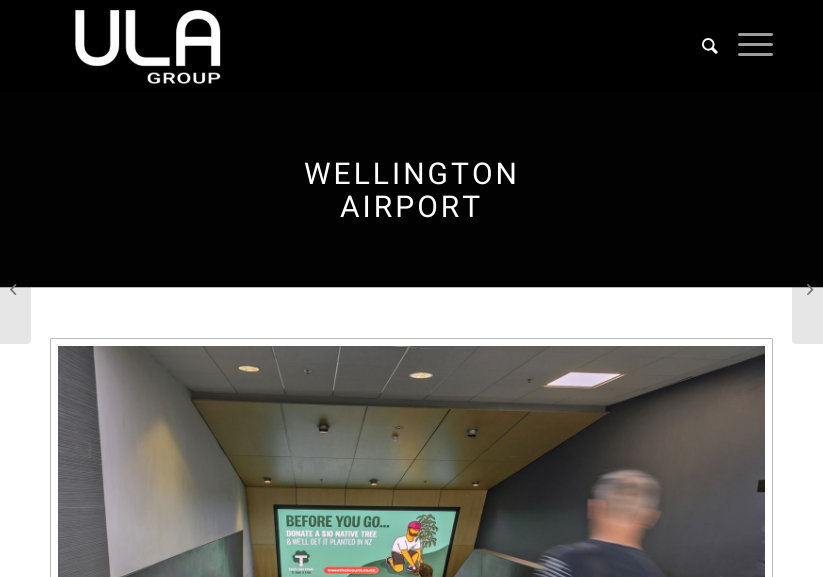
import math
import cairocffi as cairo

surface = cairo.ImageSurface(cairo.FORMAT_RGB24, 823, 577)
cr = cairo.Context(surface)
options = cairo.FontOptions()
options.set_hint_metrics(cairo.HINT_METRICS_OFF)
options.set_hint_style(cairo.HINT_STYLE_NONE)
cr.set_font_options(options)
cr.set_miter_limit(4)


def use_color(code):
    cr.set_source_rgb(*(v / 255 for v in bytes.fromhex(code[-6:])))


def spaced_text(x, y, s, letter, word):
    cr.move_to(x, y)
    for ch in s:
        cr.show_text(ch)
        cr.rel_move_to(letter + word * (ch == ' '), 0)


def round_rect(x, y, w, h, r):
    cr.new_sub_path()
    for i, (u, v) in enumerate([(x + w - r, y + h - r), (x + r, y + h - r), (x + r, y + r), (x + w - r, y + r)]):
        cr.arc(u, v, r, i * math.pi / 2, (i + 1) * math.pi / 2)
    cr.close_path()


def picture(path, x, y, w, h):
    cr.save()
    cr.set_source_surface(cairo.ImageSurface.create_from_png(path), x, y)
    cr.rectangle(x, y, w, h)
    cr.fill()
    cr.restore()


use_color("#ffffff")
cr.paint()
use_color("#000000")
cr.rectangle(0, 0, 823, 92)
cr.fill()
picture("img1.png", 75, 10, 146, 74)
picture("img2.png", 702, 38, 16, 16)
use_color("#9c9c9c")
round_rect(738, 43, 35, 3, 1.5)
cr.fill()
round_rect(738, 33, 35, 3, 1.5)
cr.fill()
round_rect(738, 53, 35, 3, 1.5)
cr.fill()
use_color("#020202")
cr.rectangle(0, 92, 823, 195)
cr.fill()
cr.select_font_face("Roboto")
cr.set_font_size(30)
use_color("#ffffff")
spaced_text(304, 184, "WELLINGTON", 3, 0)
spaced_text(340, 217, "AIRPORT", 3, 0)
use_color("#bababa")
cr.rectangle(0, 287, 823, 1)
cr.fill()
cr.new_path()
cr.move_to(52, 338.5)
cr.line_to(771, 338.5)
cr.curve_to(772, 338.5, 772.5, 339, 772.5, 340)
cr.line_to(772.5, 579.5)
cr.line_to(50.5, 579.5)
cr.line_to(50.5, 340)
cr.curve_to(50.5, 339, 51, 338.5, 52, 338.5)
cr.close_path()
cr.set_line_width(1)
cr.stroke()
picture("img3.png", 58, 346, 707, 231)
cr.set_source_rgba(0, 0, 0, 0.1)
cr.new_path()
cr.move_to(0, 234)
cr.line_to(27, 234)
cr.curve_to(29, 234, 31, 236, 31, 238)
cr.line_to(31, 340)
cr.curve_to(31, 342, 29, 344, 27, 344)
cr.line_to(0, 344)
cr.close_path()
cr.fill()
picture("img4.png", 10, 284, 7, 11)
cr.new_path()
cr.move_to(796, 234)
cr.line_to(823, 234)
cr.line_to(823, 344)
cr.line_to(796, 344)
cr.curve_to(794, 344, 792, 342, 792, 340)
cr.line_to(792, 238)
cr.curve_to(792, 236, 794, 234, 796, 234)
cr.close_path()
cr.fill()
picture("img5.png", 807, 284, 7, 11)
surface.write_to_png("result.png")
